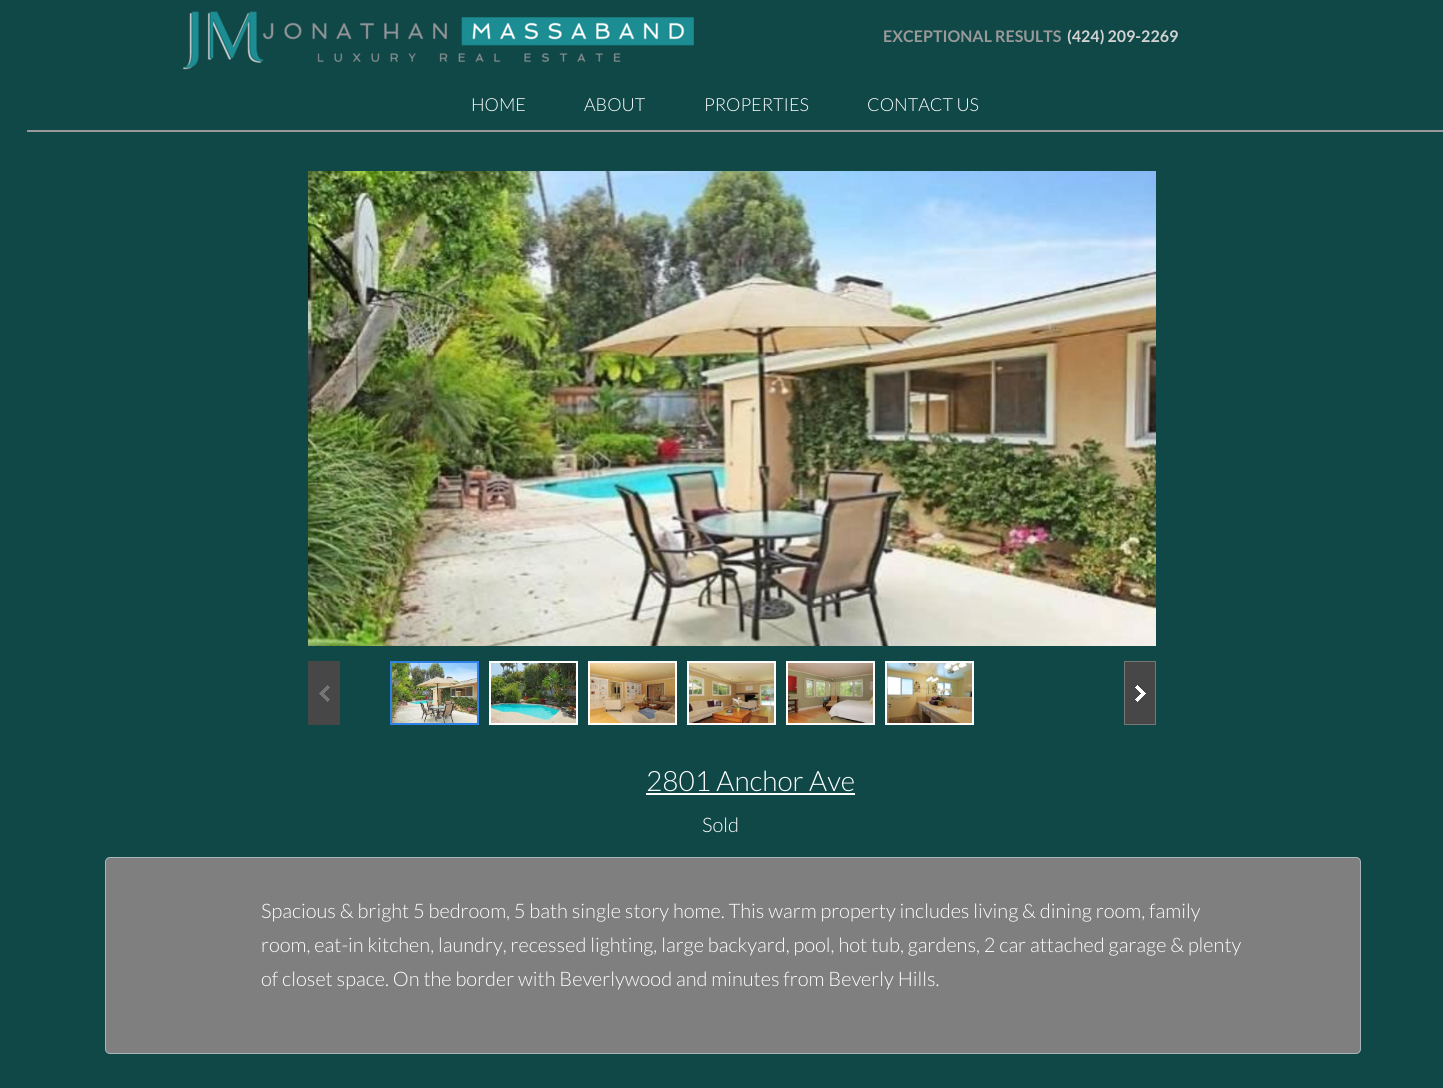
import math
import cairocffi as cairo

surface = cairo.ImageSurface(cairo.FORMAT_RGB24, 1443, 1088)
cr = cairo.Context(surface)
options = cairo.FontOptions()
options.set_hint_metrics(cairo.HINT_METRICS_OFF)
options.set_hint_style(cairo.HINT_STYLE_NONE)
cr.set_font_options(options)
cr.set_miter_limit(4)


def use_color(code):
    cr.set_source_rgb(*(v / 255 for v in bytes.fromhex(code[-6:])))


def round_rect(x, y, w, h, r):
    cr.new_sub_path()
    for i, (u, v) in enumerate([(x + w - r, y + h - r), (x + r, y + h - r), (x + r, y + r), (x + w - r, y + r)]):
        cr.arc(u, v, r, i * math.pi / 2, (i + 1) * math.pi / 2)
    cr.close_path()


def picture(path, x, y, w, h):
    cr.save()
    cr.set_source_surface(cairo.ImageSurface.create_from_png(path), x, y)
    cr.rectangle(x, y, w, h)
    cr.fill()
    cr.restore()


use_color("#104747")
cr.paint()
picture("img1.png", 182, 11, 512, 59)
cr.select_font_face("Lato", cairo.FONT_SLANT_NORMAL, cairo.FONT_WEIGHT_BOLD)
cr.set_font_size(16)
use_color("#999999")
cr.move_to(883, 42)
cr.show_text("EXCEPTIONAL RESULTS")
use_color("#d3d3d3")
cr.move_to(1067, 42)
cr.show_text("(424) 209-2269")
cr.select_font_face("Lato Light")
cr.set_font_size(18)
use_color("#ffffff")
cr.move_to(471, 111)
cr.show_text("HOME")
cr.move_to(584, 111)
cr.show_text("ABOUT")
cr.move_to(704, 111)
cr.show_text("PROPERTIES")
cr.move_to(867, 111)
cr.show_text("CONTACT US")
use_color("#999999")
cr.rectangle(27, 130, 1416, 2)
cr.fill()
picture("img2.png", 308, 171, 848, 475)
use_color("#474747")
cr.rectangle(308, 661, 32, 64)
cr.fill()
picture("img3.png", 319, 685, 11, 17)
use_color("#3182e6")
cr.rectangle(390, 661, 89, 64)
cr.fill()
picture("img4.png", 392, 663, 85, 60)
cr.rectangle(490, 662, 87, 62)
use_color("#ffffff")
cr.stroke()
picture("img5.png", 491, 663, 85, 60)
cr.rectangle(589, 662, 87, 62)
cr.stroke()
picture("img6.png", 590, 663, 85, 60)
cr.rectangle(688, 662, 87, 62)
cr.stroke()
picture("img7.png", 689, 663, 85, 60)
cr.rectangle(787, 662, 87, 62)
cr.stroke()
picture("img8.png", 788, 663, 85, 60)
cr.rectangle(886, 662, 87, 62)
cr.stroke()
picture("img9.png", 887, 663, 85, 60)
use_color("#474747")
cr.rectangle(1125, 662, 30, 62)
cr.fill()
picture("img10.png", 1135, 685, 11, 17)
cr.rectangle(1124.5, 661.5, 31, 63)
use_color("#777777")
cr.set_line_width(1)
cr.stroke()
cr.set_font_size(28)
use_color("#ffffff")
cr.move_to(646, 791)
cr.show_text("2801 Anchor Ave")
cr.rectangle(646, 793, 209, 2)
cr.fill()
cr.set_font_size(20)
cr.move_to(702, 832)
cr.show_text("Sold")
use_color("#7f7f7f")
round_rect(105.5, 857.5, 1255, 196, 4.5)
cr.fill_preserve()
use_color("#a9b4bb")
cr.stroke()
use_color("#ffffff")
cr.move_to(261, 918)
cr.show_text("Spacious & bright 5 bedroom, 5 bath single story home. This warm property includes living & dining room, family")
cr.move_to(261, 952)
cr.show_text("room, eat-in kitchen, laundry, recessed lighting, large backyard, pool, hot tub, gardens, 2 car attached garage & plenty")
cr.move_to(261, 986)
cr.show_text("of closet space. On the border with Beverlywood and minutes from Beverly Hills.")
surface.write_to_png("result.png")
